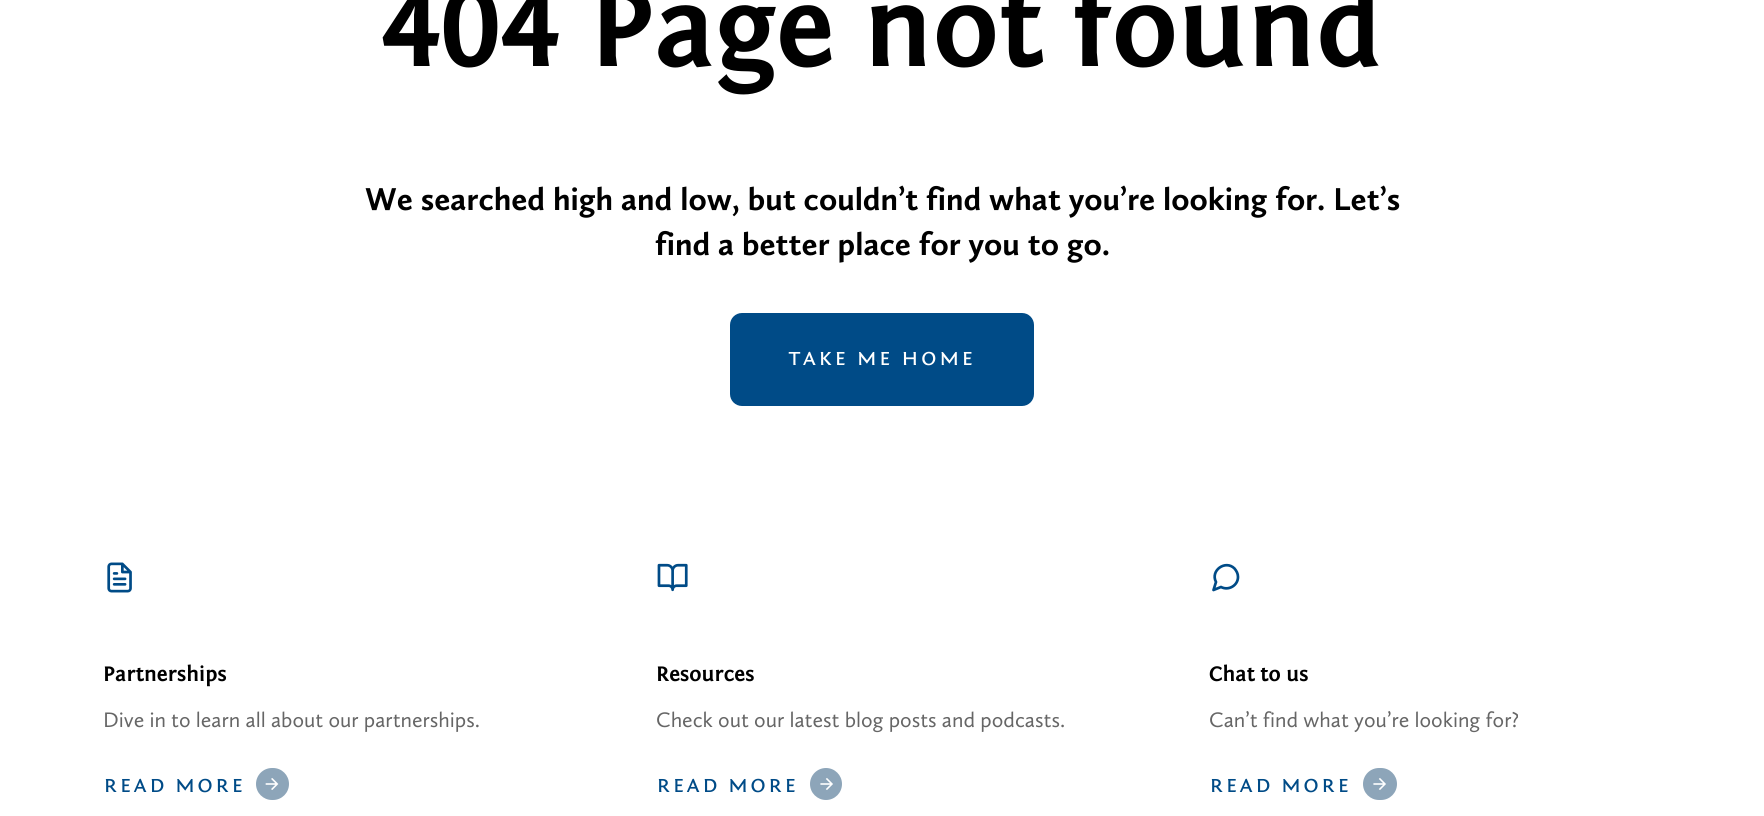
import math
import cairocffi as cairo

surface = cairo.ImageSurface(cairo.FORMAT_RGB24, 1764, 816)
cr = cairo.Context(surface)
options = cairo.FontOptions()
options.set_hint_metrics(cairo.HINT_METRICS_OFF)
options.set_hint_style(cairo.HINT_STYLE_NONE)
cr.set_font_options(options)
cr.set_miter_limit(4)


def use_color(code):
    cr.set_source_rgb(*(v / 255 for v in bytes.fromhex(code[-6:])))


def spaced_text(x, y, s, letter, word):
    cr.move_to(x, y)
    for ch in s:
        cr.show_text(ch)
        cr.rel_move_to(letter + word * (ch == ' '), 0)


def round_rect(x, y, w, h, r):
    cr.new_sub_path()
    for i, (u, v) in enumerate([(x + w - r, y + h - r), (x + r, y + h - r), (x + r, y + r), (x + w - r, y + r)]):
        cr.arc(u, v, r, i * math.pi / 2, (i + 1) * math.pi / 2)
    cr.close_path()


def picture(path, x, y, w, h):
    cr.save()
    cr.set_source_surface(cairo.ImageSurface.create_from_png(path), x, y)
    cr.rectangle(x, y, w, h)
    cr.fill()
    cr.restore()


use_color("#ffffff")
cr.paint()
cr.select_font_face("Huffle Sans", cairo.FONT_SLANT_NORMAL, cairo.FONT_WEIGHT_BOLD)
cr.set_font_size(117)
use_color("#000000")
cr.move_to(381, 66)
cr.show_text("404 Page not found")
cr.select_font_face("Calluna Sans", cairo.FONT_SLANT_NORMAL, cairo.FONT_WEIGHT_BOLD)
cr.set_font_size(32.75)
cr.move_to(365, 210)
cr.show_text("We searched high and low, but couldn’t find what you’re looking for. Let’s")
cr.move_to(655, 255)
cr.show_text("find a better place for you to go.")
use_color("#004b87")
round_rect(732, 315, 300, 89, 10)
cr.fill_preserve()
cr.set_line_width(4)
cr.stroke()
cr.select_font_face("Huffle Sans", cairo.FONT_SLANT_ITALIC, cairo.FONT_WEIGHT_BOLD)
cr.set_font_size(24.5)
use_color("#ffffff")
spaced_text(788, 365, "TAKE ME HOME", 1.5, 0)
picture("img1.png", 107, 562, 25, 31)
cr.select_font_face("Huffle Sans", cairo.FONT_SLANT_NORMAL, cairo.FONT_WEIGHT_BOLD)
cr.set_font_size(21.75)
use_color("#000000")
cr.move_to(103, 681)
cr.show_text("Partnerships")
cr.select_font_face("Calluna Sans")
use_color("#666666")
cr.move_to(103, 727)
cr.show_text("Dive in to learn all about our partnerships.")
cr.select_font_face("Huffle Sans", cairo.FONT_SLANT_ITALIC, cairo.FONT_WEIGHT_BOLD)
cr.set_font_size(24.5)
use_color("#004b87")
spaced_text(103, 792, "READ MORE", 1.5, 0)
use_color("#8da5b9")
round_rect(256, 768, 33, 32, 16)
cr.fill()
picture("img2.png", 265, 778, 14, 12)
picture("img3.png", 657, 563, 31, 29)
cr.select_font_face("Huffle Sans", cairo.FONT_SLANT_NORMAL, cairo.FONT_WEIGHT_BOLD)
cr.set_font_size(21.75)
use_color("#000000")
cr.move_to(656, 681)
cr.show_text("Resources")
cr.select_font_face("Calluna Sans")
use_color("#666666")
cr.move_to(656, 727)
cr.show_text("Check out our latest blog posts and podcasts.")
cr.select_font_face("Huffle Sans", cairo.FONT_SLANT_ITALIC, cairo.FONT_WEIGHT_BOLD)
cr.set_font_size(24.5)
use_color("#004b87")
spaced_text(656, 792, "READ MORE", 1.5, 0)
use_color("#8da5b9")
cr.new_path()
cr.arc(826, 784, 16, 0, 2 * math.pi)
cr.fill()
picture("img4.png", 820, 778, 13, 12)
cr.new_path()
cr.move_to(1238, 577)
cr.curve_to(1238, 585.5, 1228.5, 591, 1221, 587)
cr.line_to(1213.5, 590)
cr.line_to(1216, 582)
cr.curve_to(1210, 570.5, 1225.5, 559.5, 1234.5, 568.5)
cr.curve_to(1236.5, 571, 1238, 573.5, 1238, 577)
cr.close_path()
use_color("#004b87")
cr.set_line_width(2.7)
cr.set_line_cap(cairo.LINE_CAP_ROUND)
cr.set_line_join(cairo.LINE_JOIN_ROUND)
cr.stroke()
cr.select_font_face("Huffle Sans", cairo.FONT_SLANT_NORMAL, cairo.FONT_WEIGHT_BOLD)
cr.set_font_size(21.75)
use_color("#000000")
cr.move_to(1209, 681)
cr.show_text("Chat to us")
cr.select_font_face("Calluna Sans")
use_color("#666666")
cr.move_to(1209, 727)
cr.show_text("Can’t find what you’re looking for?")
cr.select_font_face("Huffle Sans", cairo.FONT_SLANT_ITALIC, cairo.FONT_WEIGHT_BOLD)
cr.set_font_size(24.5)
use_color("#004b87")
spaced_text(1209, 792, "READ MORE", 1.5, 0)
use_color("#8da5b9")
round_rect(1363, 768, 34, 32, 16)
cr.fill()
picture("img4.png", 1373, 778, 13, 12)
surface.write_to_png("result.png")
